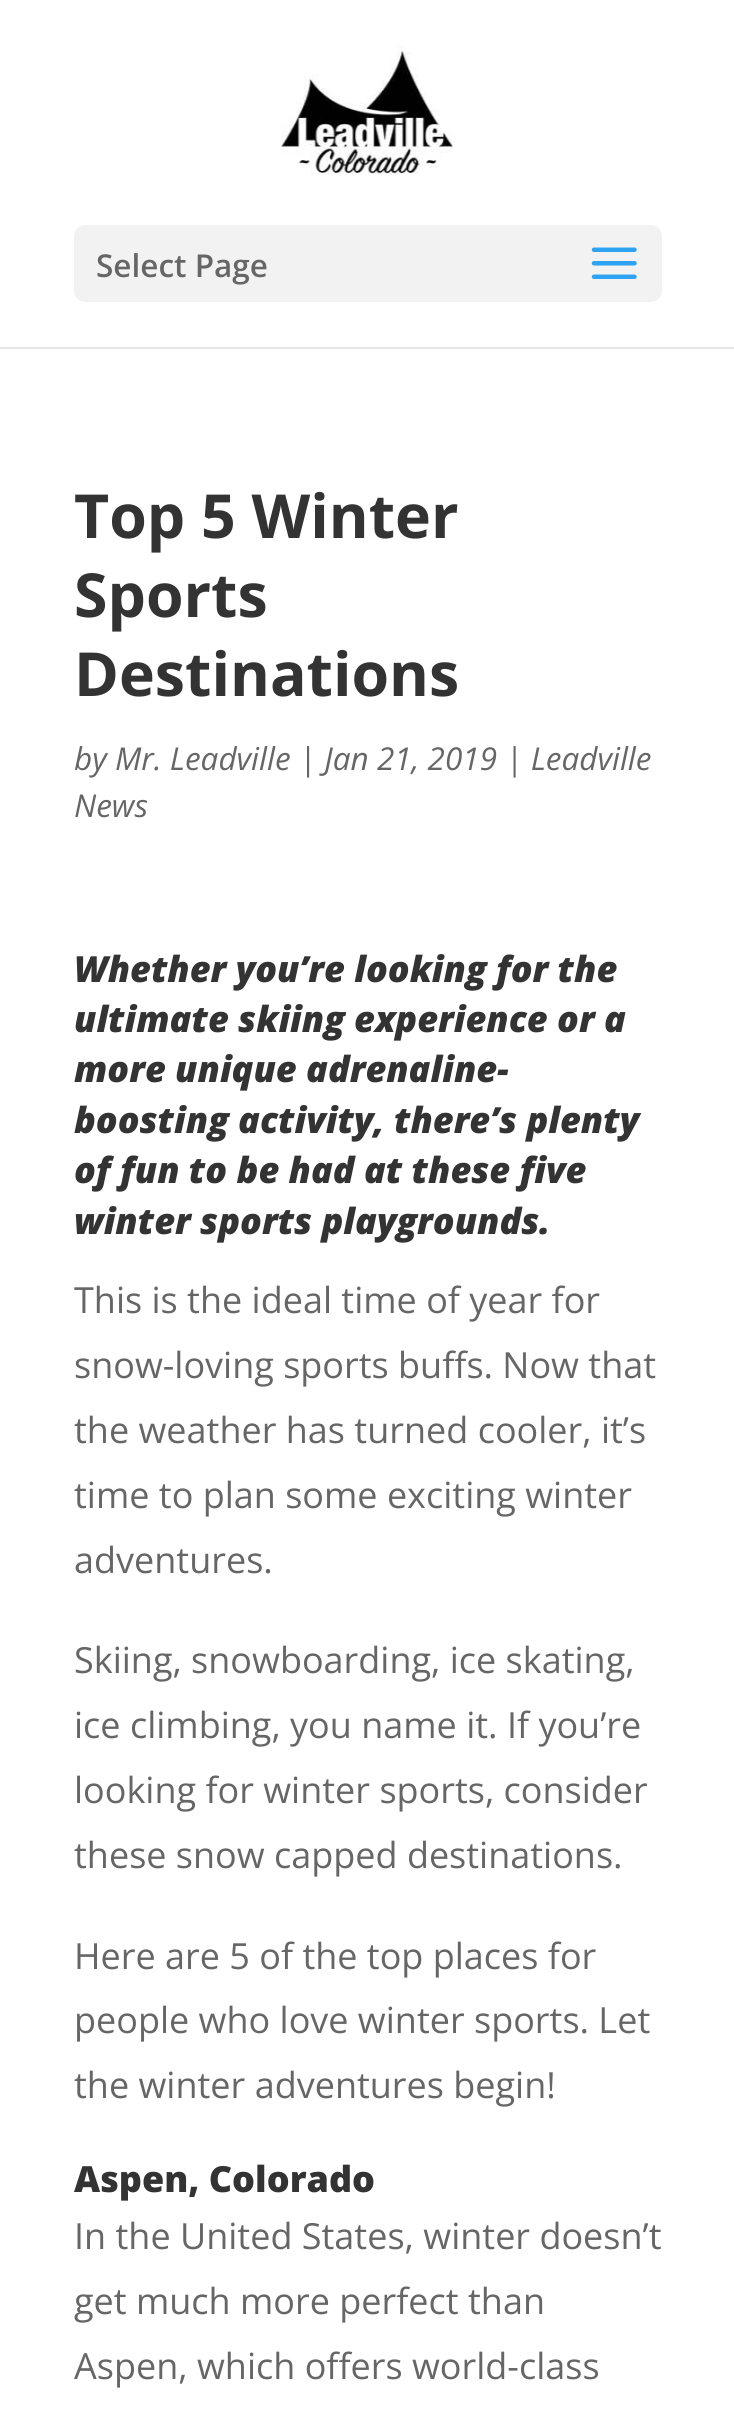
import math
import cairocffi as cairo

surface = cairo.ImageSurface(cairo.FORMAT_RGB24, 734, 2417)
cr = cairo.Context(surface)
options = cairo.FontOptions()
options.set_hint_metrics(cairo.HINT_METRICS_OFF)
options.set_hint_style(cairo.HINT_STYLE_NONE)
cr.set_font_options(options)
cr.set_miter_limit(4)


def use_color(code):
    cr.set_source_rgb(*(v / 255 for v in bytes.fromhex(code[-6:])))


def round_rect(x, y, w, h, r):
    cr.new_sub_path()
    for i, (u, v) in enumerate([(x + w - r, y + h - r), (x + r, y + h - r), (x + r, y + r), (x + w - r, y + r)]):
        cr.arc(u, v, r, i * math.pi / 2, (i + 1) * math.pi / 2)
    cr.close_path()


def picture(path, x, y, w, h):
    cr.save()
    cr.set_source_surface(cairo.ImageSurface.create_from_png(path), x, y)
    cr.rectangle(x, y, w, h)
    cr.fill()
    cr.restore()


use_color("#ffffff")
cr.paint()
use_color("#e6e6e6")
cr.new_path()
cr.move_to(0, 346)
cr.line_to(0, 349)
cr.line_to(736, 349)
cr.line_to(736, 2)
cr.line_to(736, 346)
cr.close_path()
cr.fill()
use_color("#ffffff")
cr.rectangle(0, 346, 734, 1)
cr.fill()
picture("img1.png", 281, 45, 173, 130)
use_color("#f2f2f2")
round_rect(74, 225, 588, 77, 11)
cr.fill()
cr.select_font_face("Open Sans SemiBold")
cr.set_font_size(31.5)
use_color("#666666")
cr.move_to(96, 277)
cr.show_text("Select Page")
picture("img2.png", 591, 247, 46, 32)
cr.select_font_face("Open Sans", cairo.FONT_SLANT_NORMAL, cairo.FONT_WEIGHT_BOLD)
cr.set_font_size(60.75)
use_color("#333333")
cr.move_to(74, 538)
cr.show_text("Top 5 Winter")
cr.move_to(74, 617)
cr.show_text("Sports")
cr.move_to(74, 696)
cr.show_text("Destinations")
cr.select_font_face("Open Sans", cairo.FONT_SLANT_ITALIC)
cr.set_font_size(31.5)
use_color("#666666")
cr.move_to(74, 770)
cr.show_text("by Mr. Leadville | Jan 21, 2019 | Leadville")
cr.move_to(74, 817)
cr.show_text("News")
cr.select_font_face("Open Sans ExtraBold", cairo.FONT_SLANT_ITALIC)
cr.set_font_size(36)
use_color("#333333")
cr.move_to(74, 982)
cr.show_text("Whether you’re looking for the")
cr.move_to(74, 1032)
cr.show_text("ultimate skiing experience or a")
cr.move_to(74, 1082)
cr.show_text("more unique adrenaline-")
cr.move_to(74, 1133)
cr.show_text("boosting activity, there’s plenty")
cr.move_to(74, 1183)
cr.show_text("of fun to be had at these five")
cr.move_to(74, 1234)
cr.show_text("winter sports playgrounds.")
cr.select_font_face("Open Sans")
use_color("#666666")
cr.move_to(74, 1313)
cr.show_text("This is the ideal time of year for")
cr.move_to(74, 1378)
cr.show_text("snow-loving sports buffs. Now that")
cr.move_to(74, 1443)
cr.show_text("the weather has turned cooler, it’s")
cr.move_to(74, 1508)
cr.show_text("time to plan some exciting winter")
cr.move_to(74, 1573)
cr.show_text("adventures.")
cr.move_to(74, 1673)
cr.show_text("Skiing, snowboarding, ice skating,")
cr.move_to(74, 1738)
cr.show_text("ice climbing, you name it. If you’re")
cr.move_to(74, 1803)
cr.show_text("looking for winter sports, consider")
cr.move_to(74, 1868)
cr.show_text("these snow capped destinations.")
cr.move_to(74, 1969)
cr.show_text("Here are 5 of the top places for")
cr.move_to(74, 2033)
cr.show_text("people who love winter sports. Let")
cr.move_to(74, 2098)
cr.show_text("the winter adventures begin!")
cr.select_font_face("Open Sans ExtraBold")
use_color("#333333")
cr.move_to(74, 2192)
cr.show_text("Aspen, Colorado")
cr.select_font_face("Open Sans")
use_color("#666666")
cr.move_to(74, 2249)
cr.show_text("In the United States, winter doesn’t")
cr.move_to(74, 2314)
cr.show_text("get much more perfect than")
cr.move_to(74, 2379)
cr.show_text("Aspen, which offers world-class")
surface.write_to_png("result.png")
